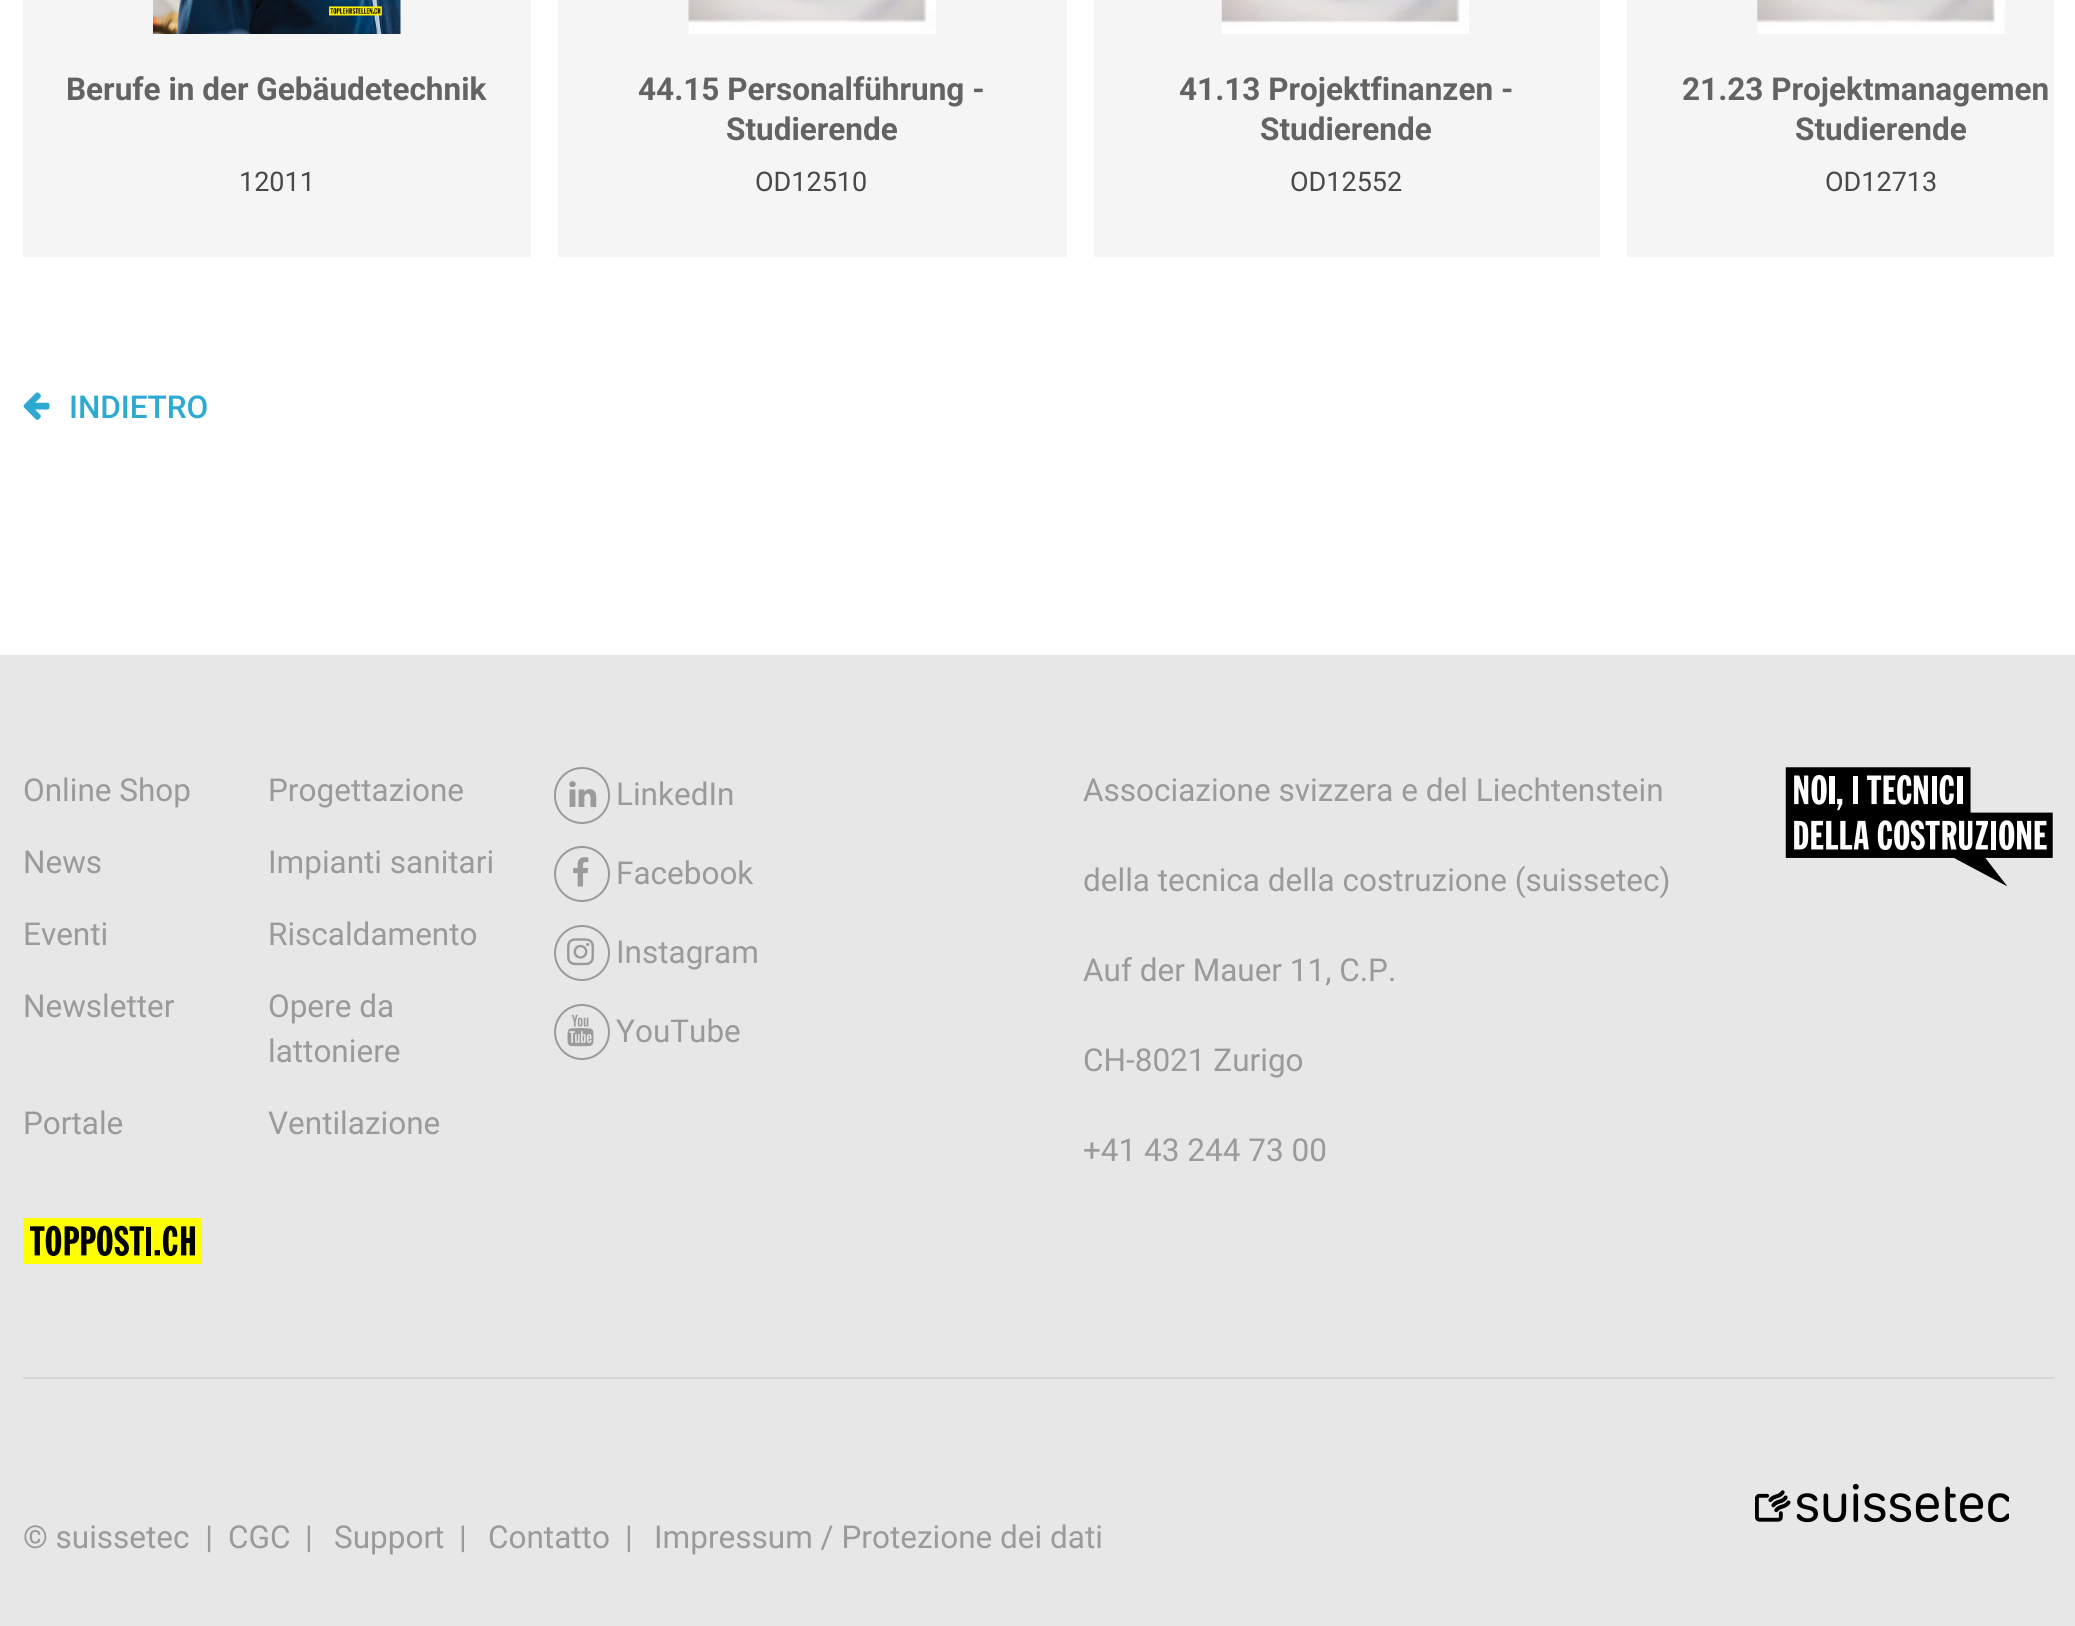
import math
import cairocffi as cairo

surface = cairo.ImageSurface(cairo.FORMAT_RGB24, 2075, 1626)
cr = cairo.Context(surface)
options = cairo.FontOptions()
options.set_hint_metrics(cairo.HINT_METRICS_OFF)
options.set_hint_style(cairo.HINT_STYLE_NONE)
cr.set_font_options(options)
cr.set_miter_limit(4)


def use_color(code):
    cr.set_source_rgb(*(v / 255 for v in bytes.fromhex(code[-6:])))


def round_rect(x, y, w, h, r):
    cr.new_sub_path()
    for i, (u, v) in enumerate([(x + w - r, y + h - r), (x + r, y + h - r), (x + r, y + r), (x + w - r, y + r)]):
        cr.arc(u, v, r, i * math.pi / 2, (i + 1) * math.pi / 2)
    cr.close_path()


def picture(path, x, y, w, h):
    cr.save()
    cr.set_source_surface(cairo.ImageSurface.create_from_png(path), x, y)
    cr.rectangle(x, y, w, h)
    cr.fill()
    cr.restore()


use_color("#ffffff")
cr.paint()
use_color("#f5f5f5")
cr.rectangle(23, 0, 508, 257)
cr.fill()
picture("img1.png", 153, 0, 248, 34)
cr.select_font_face("Roboto", cairo.FONT_SLANT_NORMAL, cairo.FONT_WEIGHT_BOLD)
cr.set_font_size(31.5)
use_color("#646264")
cr.move_to(66, 100)
cr.show_text("Berufe in der Gebäudetechnik")
cr.select_font_face("Roboto")
cr.set_font_size(27)
use_color("#4a494a")
cr.move_to(239, 191)
cr.show_text("12011")
use_color("#f5f5f5")
cr.rectangle(558, 0, 509, 257)
cr.fill()
picture("img2.png", 688, 0, 248, 34)
cr.select_font_face("Roboto", cairo.FONT_SLANT_NORMAL, cairo.FONT_WEIGHT_BOLD)
cr.set_font_size(31.5)
use_color("#646264")
cr.move_to(638, 100)
cr.show_text("44.15 Personalführung -")
cr.move_to(726, 140)
cr.show_text("Studierende")
cr.select_font_face("Roboto")
cr.set_font_size(27)
use_color("#4a494a")
cr.move_to(755, 191)
cr.show_text("OD12510")
use_color("#f5f5f5")
cr.rectangle(1094, 0, 506, 257)
cr.fill()
picture("img3.png", 1221, 0, 248, 34)
cr.select_font_face("Roboto", cairo.FONT_SLANT_NORMAL, cairo.FONT_WEIGHT_BOLD)
cr.set_font_size(31.5)
use_color("#646264")
cr.move_to(1179, 100)
cr.show_text("41.13 Projektfinanzen -")
cr.move_to(1260, 140)
cr.show_text("Studierende")
cr.select_font_face("Roboto")
cr.set_font_size(27)
use_color("#4a494a")
cr.move_to(1290, 191)
cr.show_text("OD12552")
use_color("#f5f5f5")
cr.rectangle(1627, 0, 427, 257)
cr.fill()
picture("img4.png", 1757, 0, 248, 34)
cr.select_font_face("Roboto", cairo.FONT_SLANT_NORMAL, cairo.FONT_WEIGHT_BOLD)
cr.set_font_size(31.5)
use_color("#646264")
cr.move_to(1682, 100)
cr.show_text("21.23 Projektmanagemen")
cr.move_to(1795, 140)
cr.show_text("Studierende")
cr.select_font_face("Roboto")
cr.set_font_size(27)
use_color("#4a494a")
cr.move_to(1825, 191)
cr.show_text("OD12713")
picture("img5.png", 23, 392, 27, 28)
cr.select_font_face("Roboto Medium")
cr.set_font_size(31.5)
use_color("#2daad2")
cr.move_to(69, 418)
cr.show_text("INDIETRO")
use_color("#e7e7e7")
cr.rectangle(0, 655, 2075, 971)
cr.fill()
cr.select_font_face("Roboto")
use_color("#9b9a9b")
cr.move_to(23, 801)
cr.show_text("Online Shop")
cr.move_to(268, 801)
cr.show_text("Progettazione")
cr.move_to(23, 873)
cr.show_text("News")
cr.move_to(268, 873)
cr.show_text("Impianti sanitari")
cr.move_to(23, 945)
cr.show_text("Eventi")
cr.move_to(268, 945)
cr.show_text("Riscaldamento")
cr.move_to(23, 1017)
cr.show_text("Newsletter")
cr.move_to(268, 1017)
cr.show_text("Opere da")
cr.move_to(268, 1062)
cr.show_text("lattoniere")
cr.move_to(23, 1134)
cr.show_text("Portale")
cr.move_to(268, 1134)
cr.show_text("Ventilazione")
round_rect(555, 768, 54, 55, 27)
cr.stroke()
picture("img6.png", 569, 781, 28, 26)
cr.move_to(616, 805)
cr.show_text("LinkedIn")
cr.new_path()
cr.arc(582, 874, 27, 0, 2 * math.pi)
cr.stroke()
picture("img7.png", 573, 857, 16, 30)
cr.move_to(616, 884)
cr.show_text("Facebook")
cr.new_path()
cr.arc(582, 953, 27, 0, 2 * math.pi)
cr.stroke()
picture("img8.png", 567, 938, 27, 28)
cr.move_to(616, 963)
cr.show_text("Instagram")
cr.new_path()
cr.arc(582, 1032, 27, 0, 2 * math.pi)
cr.stroke()
picture("img9.png", 567, 1014, 27, 33)
cr.move_to(616, 1042)
cr.show_text("YouTube")
cr.move_to(1083, 801)
cr.show_text("Associazione svizzera e del Liechtenstein")
cr.move_to(1083, 891)
cr.show_text("della tecnica della costruzione (suissetec)")
cr.move_to(1083, 981)
cr.show_text("Auf der Mauer 11, C.P.")
cr.move_to(1083, 1071)
cr.show_text("CH-8021 Zurigo")
cr.move_to(1083, 1161)
cr.show_text("+41 43 244 73 00")
picture("img10.png", 1785, 767, 268, 120)
picture("img11.png", 23, 1218, 179, 46)
use_color("#d3d6d8")
cr.rectangle(23, 1377, 2031, 2)
cr.fill()
picture("img12.png", 1755, 1483, 254, 40)
use_color("#9b9a9b")
cr.move_to(23, 1548)
cr.show_text("© suissetec  |")
cr.move_to(228, 1548)
cr.show_text("CGC")
cr.move_to(305, 1548)
cr.show_text("|")
cr.move_to(334, 1548)
cr.show_text("Support")
cr.move_to(459, 1548)
cr.show_text("|")
cr.move_to(488, 1548)
cr.show_text("Contatto")
cr.move_to(625, 1548)
cr.show_text("|")
cr.move_to(654, 1548)
cr.show_text("Impressum / Protezione dei dati")
surface.write_to_png("result.png")
